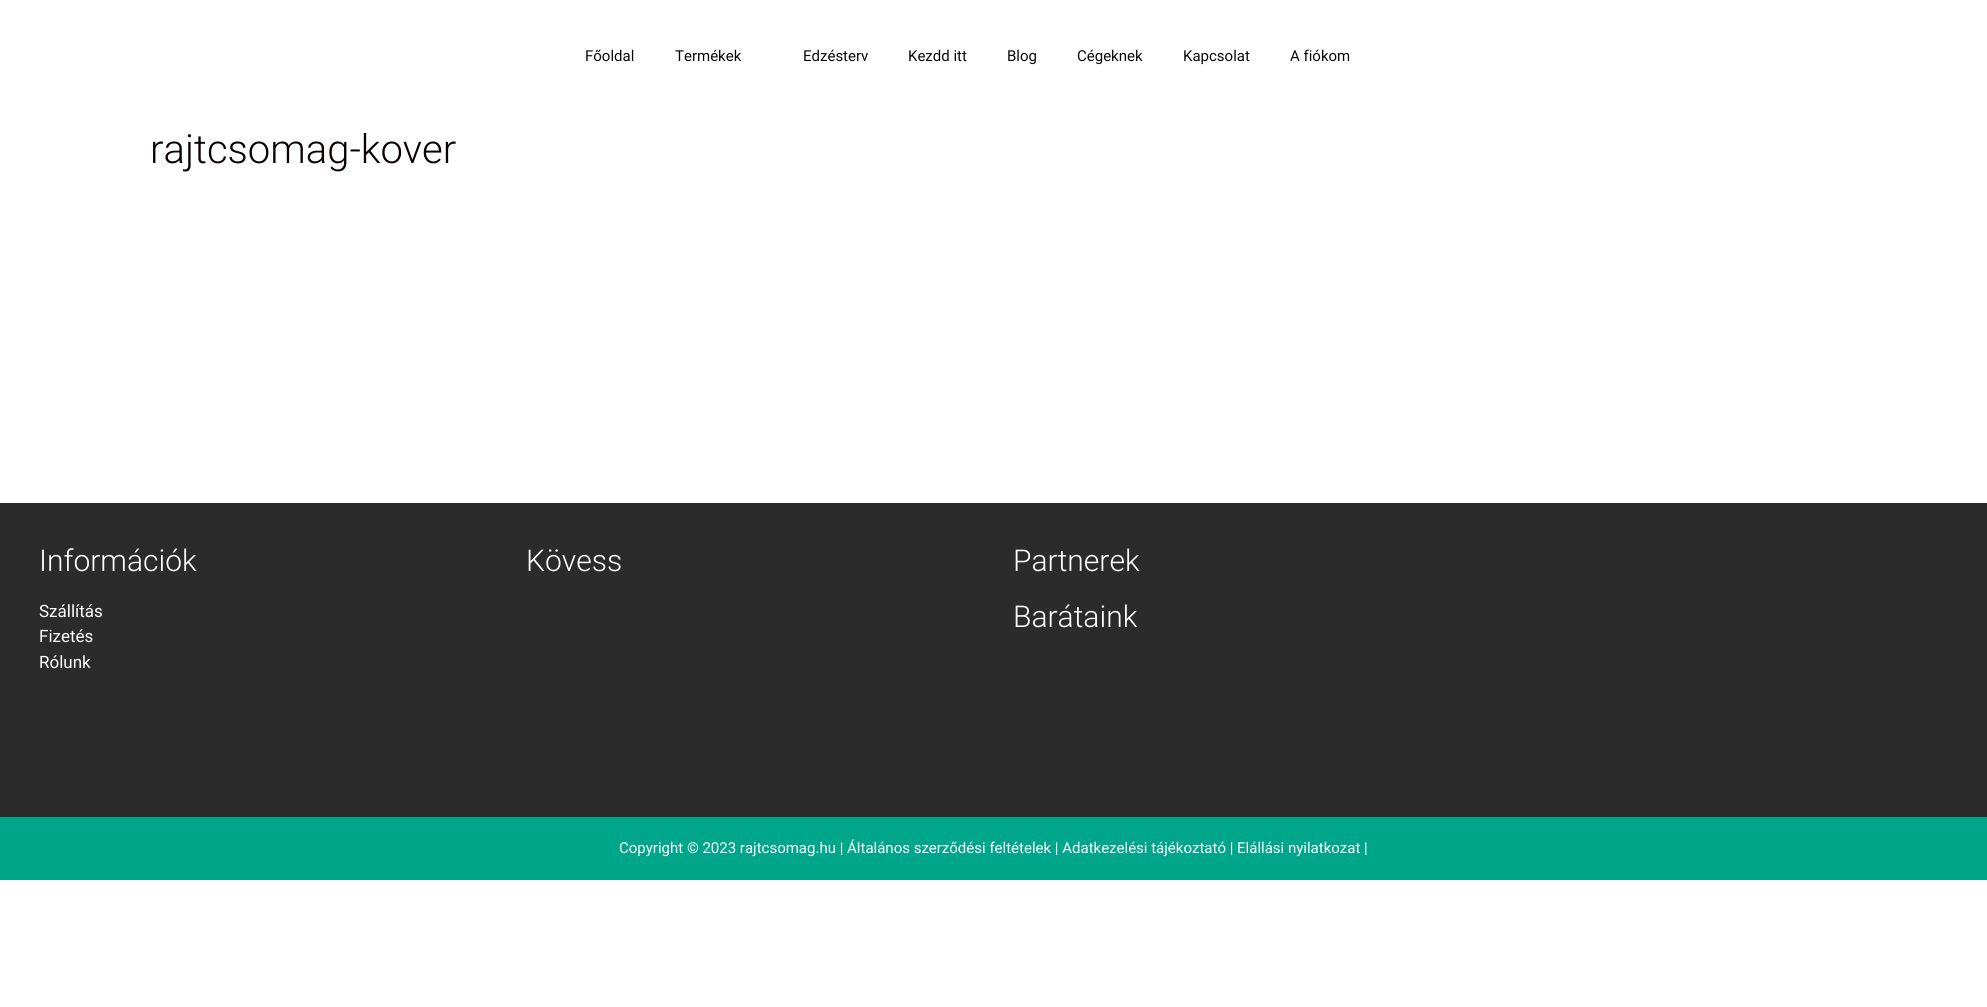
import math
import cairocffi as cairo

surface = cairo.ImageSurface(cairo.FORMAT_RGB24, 1987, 1007)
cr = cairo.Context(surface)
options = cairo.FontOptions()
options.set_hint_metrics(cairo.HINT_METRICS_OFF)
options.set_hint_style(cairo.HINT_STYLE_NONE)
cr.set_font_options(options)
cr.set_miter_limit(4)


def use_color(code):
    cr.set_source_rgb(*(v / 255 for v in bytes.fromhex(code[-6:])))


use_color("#ffffff")
cr.paint()
cr.select_font_face("Roboto")
cr.set_font_size(15)
use_color("#0a0a0a")
cr.move_to(585, 61)
cr.show_text("Főoldal")
cr.move_to(675, 61)
cr.show_text("Termékek")
cr.move_to(803, 61)
cr.show_text("Edzésterv")
cr.move_to(908, 61)
cr.show_text("Kezdd itt")
cr.move_to(1007, 61)
cr.show_text("Blog")
cr.move_to(1077, 61)
cr.show_text("Cégeknek")
cr.move_to(1183, 61)
cr.show_text("Kapcsolat")
cr.move_to(1290, 61)
cr.show_text("A fiókom")
cr.select_font_face("Roboto Light")
cr.set_font_size(40)
use_color("#0a0001")
cr.move_to(150, 163)
cr.show_text("rajtcsomag-kover")
use_color("#2b2b2b")
cr.rectangle(0, 503, 1987, 314)
cr.fill()
cr.set_font_size(30)
use_color("#ffffff")
cr.move_to(39, 571)
cr.show_text("Információk")
cr.select_font_face("Roboto")
cr.set_font_size(17)
cr.move_to(39, 617)
cr.show_text("Szállítás")
cr.move_to(39, 642)
cr.show_text("Fizetés")
cr.move_to(39, 668)
cr.show_text("Rólunk")
cr.select_font_face("Roboto Light")
cr.set_font_size(30)
cr.move_to(526, 571)
cr.show_text("Kövess")
cr.move_to(1013, 571)
cr.show_text("Partnerek")
cr.move_to(1013, 627)
cr.show_text("Barátaink")
use_color("#00a68a")
cr.rectangle(0, 817, 1987, 63)
cr.fill()
cr.select_font_face("Roboto")
cr.set_font_size(15)
use_color("#ffffff")
cr.move_to(619, 853)
cr.show_text("Copyright © 2023 rajtcsomag.hu | Általános szerződési feltételek | Adatkezelési tájékoztató | Elállási nyilatkozat |")
surface.write_to_png("result.png")
